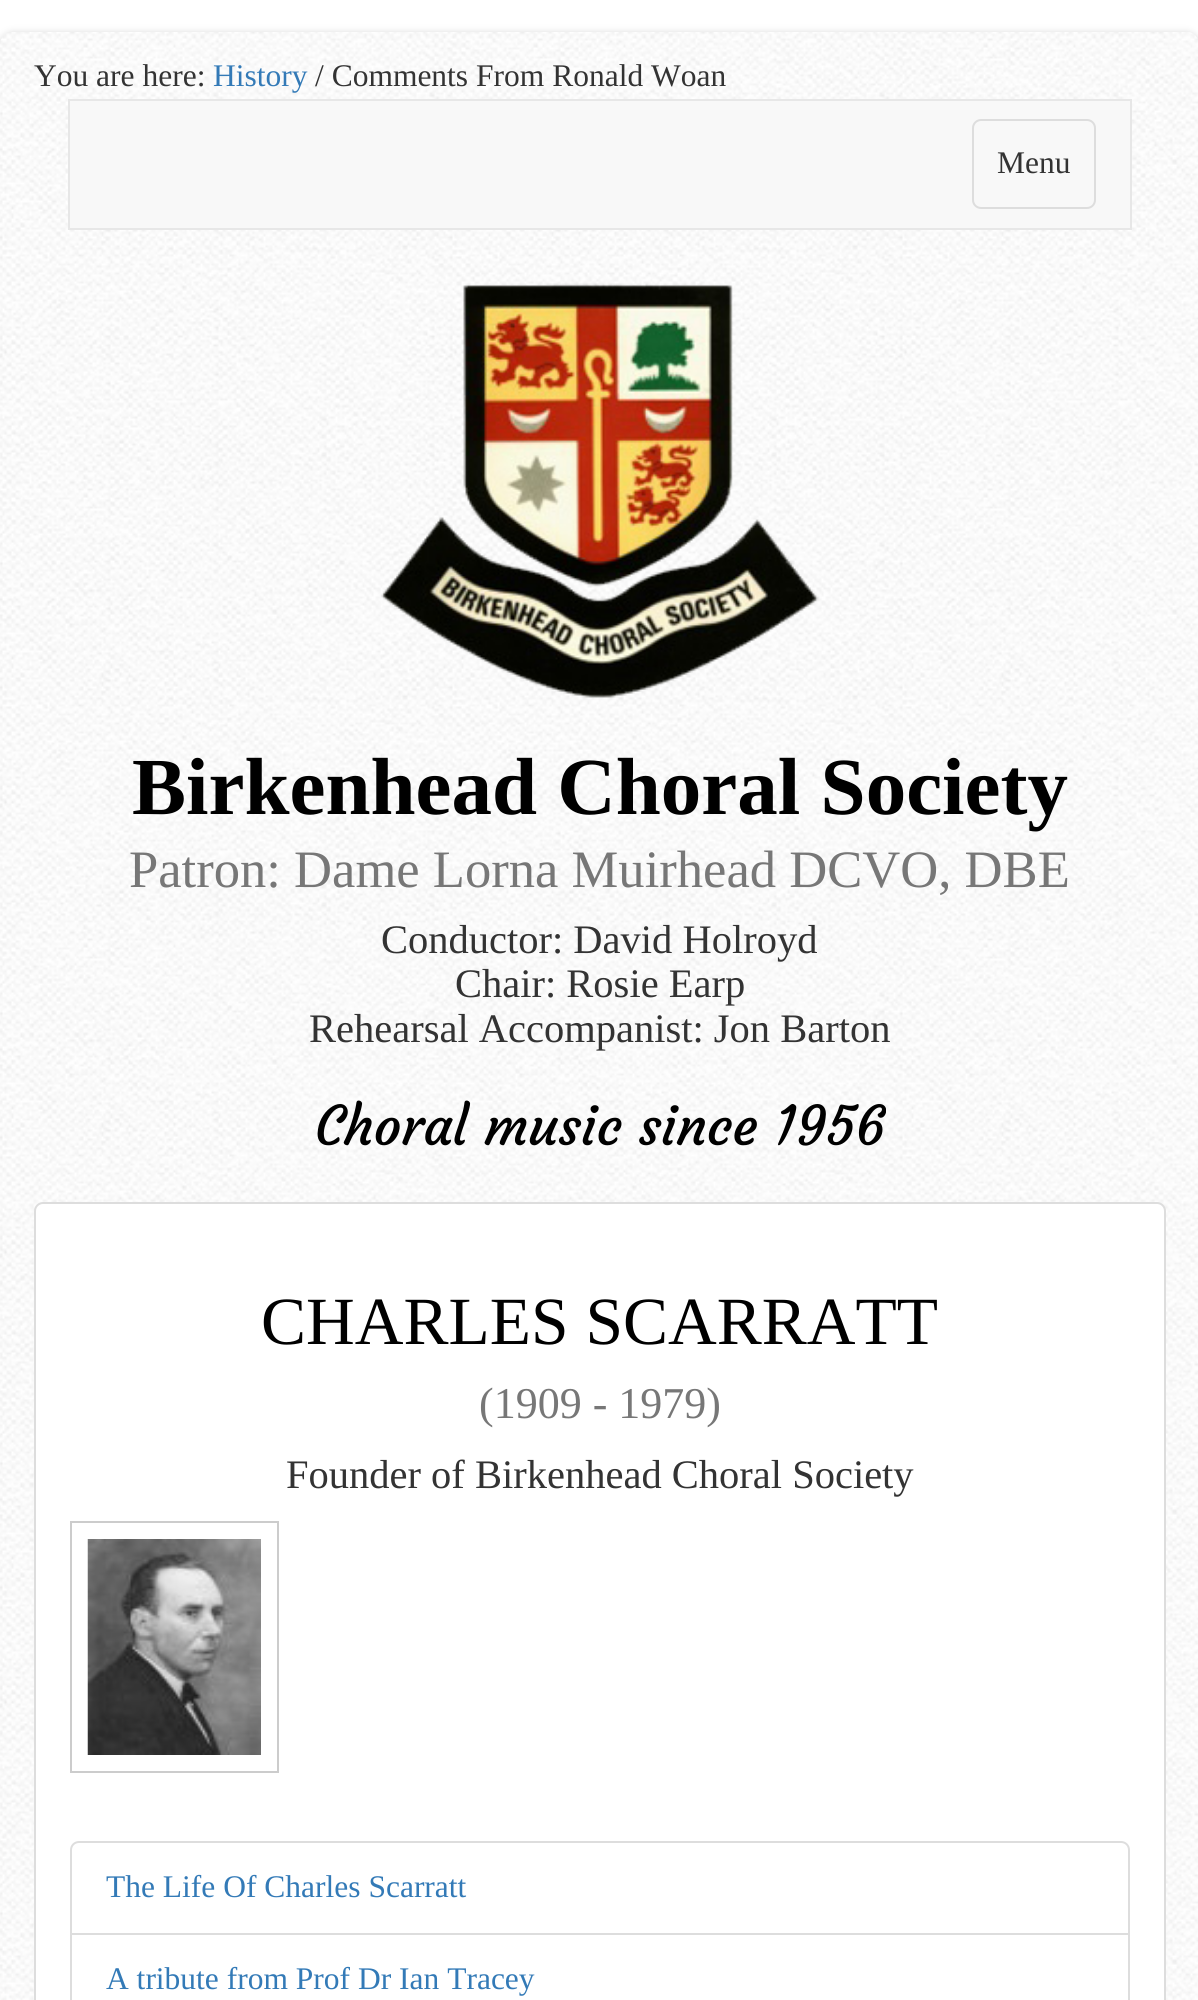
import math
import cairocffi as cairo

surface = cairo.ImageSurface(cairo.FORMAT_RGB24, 1198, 2000)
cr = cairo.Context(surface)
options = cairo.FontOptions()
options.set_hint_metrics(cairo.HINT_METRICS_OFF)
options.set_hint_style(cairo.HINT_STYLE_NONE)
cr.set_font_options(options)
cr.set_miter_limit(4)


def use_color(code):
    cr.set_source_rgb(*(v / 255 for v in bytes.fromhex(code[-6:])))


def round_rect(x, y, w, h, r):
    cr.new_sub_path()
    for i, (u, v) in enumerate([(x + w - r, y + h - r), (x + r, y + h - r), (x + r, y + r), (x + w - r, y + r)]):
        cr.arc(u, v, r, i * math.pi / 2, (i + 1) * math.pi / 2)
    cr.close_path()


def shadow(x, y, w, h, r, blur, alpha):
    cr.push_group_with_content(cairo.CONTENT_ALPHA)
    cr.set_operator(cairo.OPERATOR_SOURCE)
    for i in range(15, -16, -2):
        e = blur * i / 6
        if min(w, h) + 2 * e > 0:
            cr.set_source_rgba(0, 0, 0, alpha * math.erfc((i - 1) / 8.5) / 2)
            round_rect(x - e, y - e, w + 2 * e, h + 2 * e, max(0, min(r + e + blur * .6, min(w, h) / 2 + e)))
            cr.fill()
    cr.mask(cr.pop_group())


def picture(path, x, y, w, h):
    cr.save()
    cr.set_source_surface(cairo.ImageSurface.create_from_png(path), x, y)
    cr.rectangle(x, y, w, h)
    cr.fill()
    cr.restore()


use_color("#ffffff")
cr.paint()
use_color("#dddddd")
shadow(-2, 32, 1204, 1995, 16, 3.5, 1)
picture("img1.png", 0, 32, 1198, 1968)
cr.select_font_face("Liberation Serif")
cr.set_font_size(31.5)
use_color("#333333")
cr.move_to(34, 86)
cr.show_text("You are here:")
use_color("#337ab7")
cr.move_to(213, 86)
cr.show_text("History")
use_color("#333333")
cr.move_to(315, 86)
cr.show_text("/ Comments From Ronald Woan")
use_color("#f8f8f8")
cr.rectangle(69, 100, 1062, 129)
cr.fill_preserve()
use_color("#e7e7e7")
cr.stroke()
round_rect(973, 120, 122, 88, 8)
use_color("#dddddd")
cr.stroke()
use_color("#333333")
cr.move_to(997, 173)
cr.show_text("Menu")
picture("img2.png", 381, 283, 438, 415)
cr.select_font_face("Liberation Serif", cairo.FONT_SLANT_NORMAL, cairo.FONT_WEIGHT_BOLD)
cr.set_font_size(81)
use_color("#000000")
cr.move_to(132, 814)
cr.show_text("Birkenhead Choral Society")
cr.select_font_face("Liberation Serif")
cr.set_font_size(52.6)
use_color("#777777")
cr.move_to(129, 887)
cr.show_text("Patron: Dame Lorna Muirhead DCVO, DBE")
cr.set_font_size(40.5)
use_color("#333333")
cr.move_to(381, 953)
cr.show_text("Conductor: David Holroyd")
cr.move_to(455, 997)
cr.show_text("Chair: Rosie Earp")
cr.move_to(309, 1042)
cr.show_text("Rehearsal Accompanist: Jon Barton")
cr.select_font_face("Courgette")
cr.set_font_size(54)
use_color("#000000")
cr.move_to(315, 1145)
cr.show_text("Choral music since 1956")
use_color("#ffffff")
round_rect(35, 1203, 1130, 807, 8)
cr.fill_preserve()
use_color("#dddddd")
cr.stroke()
cr.select_font_face("Liberation Serif")
cr.set_font_size(67.5)
use_color("#000000")
cr.move_to(261, 1344)
cr.show_text("CHARLES SCARRATT")
cr.set_font_size(44)
use_color("#777777")
cr.move_to(479, 1418)
cr.show_text("(1909 - 1979)")
cr.set_font_size(40.5)
use_color("#333333")
cr.move_to(286, 1488)
cr.show_text("Founder of Birkenhead Choral Society")
cr.rectangle(71, 1522, 207, 250)
use_color("#cccccc")
cr.stroke()
picture("img3.png", 87, 1539, 174, 216)
cr.new_path()
cr.move_to(79, 1842)
cr.line_to(1121, 1842)
cr.curve_to(1125.5, 1842, 1129, 1845.5, 1129, 1850)
cr.line_to(1129, 1934)
cr.line_to(71, 1934)
cr.line_to(71, 1850)
cr.curve_to(71, 1845.5, 74.5, 1842, 79, 1842)
cr.close_path()
use_color("#dddddd")
cr.stroke()
cr.set_font_size(31.5)
use_color("#337ab7")
cr.move_to(106, 1897)
cr.show_text("The Life Of Charles Scarratt")
cr.rectangle(71, 1934, 1058, 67)
use_color("#dddddd")
cr.stroke()
use_color("#337ab7")
cr.move_to(106, 1989)
cr.show_text("A tribute from Prof Dr Ian Tracey")
surface.write_to_png("result.png")
